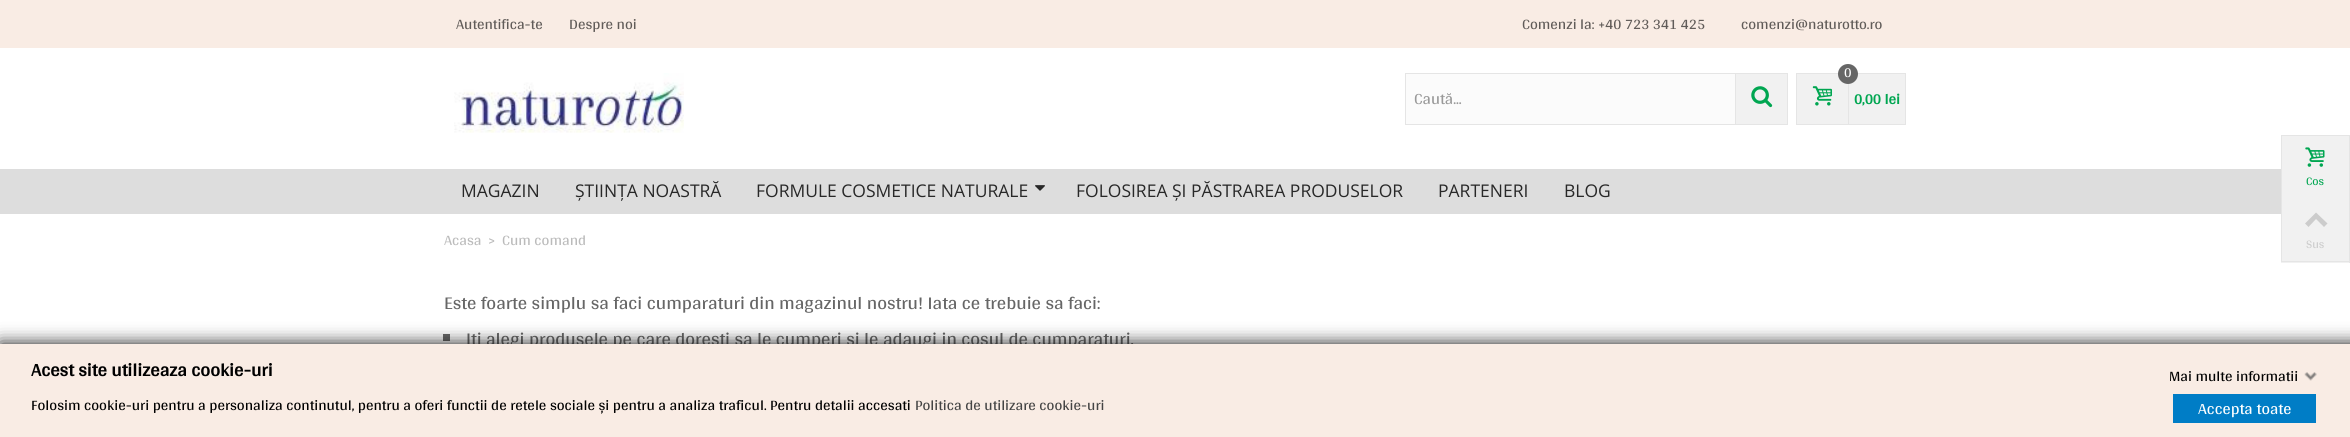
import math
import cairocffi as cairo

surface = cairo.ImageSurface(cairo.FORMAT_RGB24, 2350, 437)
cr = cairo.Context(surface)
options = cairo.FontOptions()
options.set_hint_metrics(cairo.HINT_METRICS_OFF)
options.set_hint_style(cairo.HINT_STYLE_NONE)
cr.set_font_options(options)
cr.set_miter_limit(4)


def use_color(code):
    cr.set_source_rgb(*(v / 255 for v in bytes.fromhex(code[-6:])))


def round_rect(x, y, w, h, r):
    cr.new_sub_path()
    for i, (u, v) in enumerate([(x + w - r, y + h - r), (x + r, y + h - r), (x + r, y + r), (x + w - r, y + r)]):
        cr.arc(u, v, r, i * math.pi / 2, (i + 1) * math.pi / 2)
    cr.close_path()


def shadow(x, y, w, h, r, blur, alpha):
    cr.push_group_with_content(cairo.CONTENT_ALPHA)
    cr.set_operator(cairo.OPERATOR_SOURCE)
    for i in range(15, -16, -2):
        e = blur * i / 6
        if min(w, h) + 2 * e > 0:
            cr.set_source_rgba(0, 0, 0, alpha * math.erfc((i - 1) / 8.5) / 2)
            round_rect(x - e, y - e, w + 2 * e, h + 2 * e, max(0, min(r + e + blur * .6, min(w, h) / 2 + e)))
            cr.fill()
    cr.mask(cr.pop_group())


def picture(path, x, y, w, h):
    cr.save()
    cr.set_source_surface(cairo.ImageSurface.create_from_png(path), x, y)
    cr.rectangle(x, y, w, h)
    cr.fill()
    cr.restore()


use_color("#ffffff")
cr.paint()
use_color("#f9ece4")
cr.rectangle(0, 0, 2350, 48)
cr.fill()
cr.select_font_face("Arya")
cr.set_font_size(15)
use_color("#605b58")
cr.move_to(456, 29)
cr.show_text("Autentifica-te")
cr.move_to(569, 29)
cr.show_text("Despre noi")
cr.move_to(1522, 29)
cr.show_text("Comenzi la: +40 723 341 425")
cr.move_to(1741, 29)
cr.show_text("comenzi@naturotto.ro")
picture("img1.png", 454, 73, 230, 60)
use_color("#fbfbfb")
cr.rectangle(1406, 74, 329, 50)
cr.fill()
use_color("#e5e5e5")
cr.rectangle(1405, 73, 330, 1)
cr.fill()
cr.rectangle(1405, 124, 330, 1)
cr.fill()
cr.rectangle(1405, 73, 1, 52)
cr.fill()
cr.set_font_size(16.25)
use_color("#999999")
cr.move_to(1414, 104)
cr.show_text("Caută...")
use_color("#f1f1f1")
cr.rectangle(1735.5, 73.5, 52, 51)
cr.fill_preserve()
use_color("#e5e5e5")
cr.set_line_width(1)
cr.stroke()
picture("img2.png", 1751, 86, 22, 22)
use_color("#f1f1f1")
cr.rectangle(1796.5, 73.5, 52, 51)
cr.fill_preserve()
use_color("#e5e5e5")
cr.stroke()
use_color("#f1f1f1")
cr.rectangle(1849, 74, 56, 50)
cr.fill()
use_color("#e5e5e5")
cr.rectangle(1849, 73, 57, 1)
cr.fill()
use_color("#666666")
cr.arc(1848, 74, 10, 0, 2 * math.pi)
cr.fill()
cr.set_font_size(14)
use_color("#ffffff")
cr.move_to(1844, 77)
cr.show_text("0")
picture("img3.png", 1812, 86, 20, 20)
use_color("#e5e5e5")
cr.rectangle(1905, 73, 1, 52)
cr.fill()
cr.rectangle(1849, 124, 57, 1)
cr.fill()
cr.select_font_face("Arya", cairo.FONT_SLANT_NORMAL, cairo.FONT_WEIGHT_BOLD)
cr.set_font_size(15)
use_color("#00a651")
cr.move_to(1854, 104)
cr.show_text("0,00 lei")
use_color("#dddddd")
cr.rectangle(0, 169, 2281, 45)
cr.fill()
cr.select_font_face("Open Sans")
cr.set_font_size(17.5)
use_color("#282828")
cr.move_to(461, 197)
cr.show_text("MAGAZIN")
cr.move_to(575, 197)
cr.show_text("ȘTIINȚA NOASTRĂ")
cr.move_to(756, 197)
cr.show_text("FORMULE COSMETICE NATURALE")
picture("img4.png", 1035, 185, 10, 6)
cr.move_to(1076, 197)
cr.show_text("FOLOSIREA ȘI PĂSTRAREA PRODUSELOR")
cr.move_to(1438, 197)
cr.show_text("PARTENERI")
cr.move_to(1564, 197)
cr.show_text("BLOG")
cr.select_font_face("Arya")
cr.set_font_size(15)
use_color("#bbbbbb")
cr.move_to(444, 245)
cr.show_text("Acasa")
cr.move_to(488, 245)
cr.show_text(">")
cr.move_to(502, 245)
cr.show_text("Cum comand")
cr.set_font_size(18.75)
use_color("#666666")
cr.move_to(444, 309)
cr.show_text("Este foarte simplu sa faci cumparaturi din magazinul nostru! Iata ce trebuie sa faci:")
cr.rectangle(443, 334, 7, 7)
cr.fill()
cr.move_to(466, 345)
cr.show_text("Iti alegi produsele pe care doresti sa le cumperi si le adaugi in cosul de cumparaturi.")
use_color("#f1f1f1")
cr.rectangle(2281, 136, 68, 127)
cr.fill()
use_color("#e5e5e5")
cr.rectangle(2281, 135, 69, 1)
cr.fill()
cr.rectangle(2349, 135, 1, 128)
cr.fill()
cr.rectangle(2281, 261, 69, 1)
cr.fill()
cr.rectangle(2281, 136, 1, 125)
cr.fill()
picture("img5.png", 2305, 147, 20, 20)
cr.set_font_size(12)
use_color("#00a651")
cr.move_to(2306, 185)
cr.show_text("Cos")
use_color("#cccccc")
cr.new_path()
cr.move_to(2305, 223.5)
cr.line_to(2316, 212.5)
cr.line_to(2327.5, 223.5)
cr.line_to(2324, 227)
cr.line_to(2316, 219)
cr.line_to(2308.5, 227)
cr.close_path()
cr.fill()
cr.move_to(2306, 248)
cr.show_text("Sus")
use_color("#121212")
shadow(0, 344, 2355, 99, 0, 9, 1)
use_color("#f9ece4")
cr.rectangle(0, 344, 2350, 93)
cr.fill()
cr.select_font_face("Arya", cairo.FONT_SLANT_NORMAL, cairo.FONT_WEIGHT_BOLD)
cr.set_font_size(18.75)
use_color("#000000")
cr.move_to(31, 376)
cr.show_text("Acest site utilizeaza cookie-uri")
cr.select_font_face("Arya")
cr.set_font_size(15)
cr.move_to(31, 410)
cr.show_text("Folosim cookie-uri pentru a personaliza continutul, pentru a oferi functii de retele sociale și pentru a analiza traficul. Pentru detalii accesati")
use_color("#444444")
cr.move_to(915, 410)
cr.show_text("Politica de utilizare cookie-uri")
use_color("#000000")
cr.move_to(2169, 381)
cr.show_text("Mai multe informatii")
picture("img6.png", 2304, 372, 13, 9)
use_color("#007dc6")
cr.rectangle(2173, 394, 143, 29)
cr.fill()
cr.set_font_size(16.25)
use_color("#ffffff")
cr.move_to(2198, 414)
cr.show_text("Accepta toate")
surface.write_to_png("result.png")
